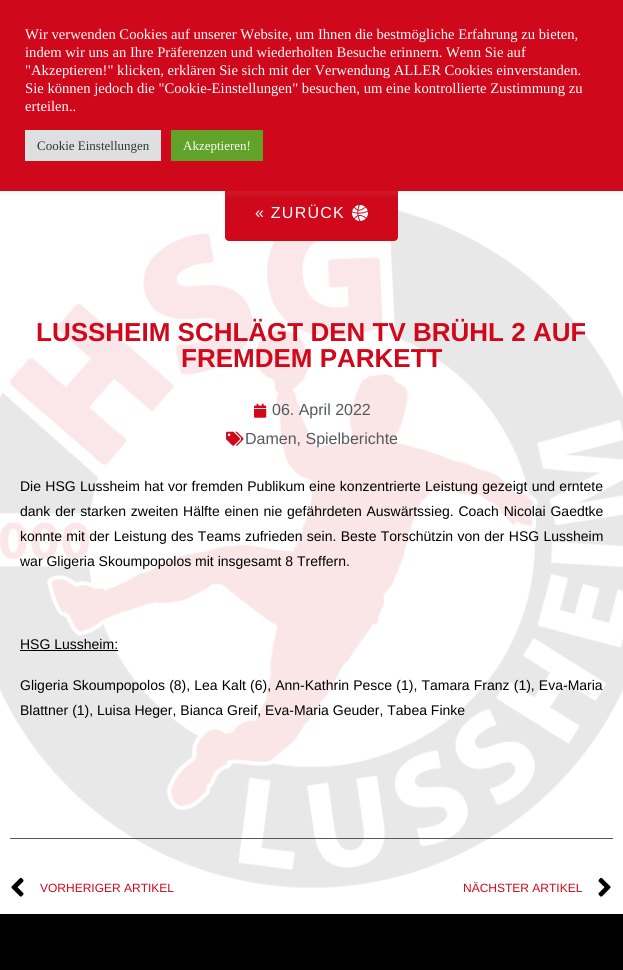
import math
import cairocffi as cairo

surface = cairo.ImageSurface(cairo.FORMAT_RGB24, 623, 970)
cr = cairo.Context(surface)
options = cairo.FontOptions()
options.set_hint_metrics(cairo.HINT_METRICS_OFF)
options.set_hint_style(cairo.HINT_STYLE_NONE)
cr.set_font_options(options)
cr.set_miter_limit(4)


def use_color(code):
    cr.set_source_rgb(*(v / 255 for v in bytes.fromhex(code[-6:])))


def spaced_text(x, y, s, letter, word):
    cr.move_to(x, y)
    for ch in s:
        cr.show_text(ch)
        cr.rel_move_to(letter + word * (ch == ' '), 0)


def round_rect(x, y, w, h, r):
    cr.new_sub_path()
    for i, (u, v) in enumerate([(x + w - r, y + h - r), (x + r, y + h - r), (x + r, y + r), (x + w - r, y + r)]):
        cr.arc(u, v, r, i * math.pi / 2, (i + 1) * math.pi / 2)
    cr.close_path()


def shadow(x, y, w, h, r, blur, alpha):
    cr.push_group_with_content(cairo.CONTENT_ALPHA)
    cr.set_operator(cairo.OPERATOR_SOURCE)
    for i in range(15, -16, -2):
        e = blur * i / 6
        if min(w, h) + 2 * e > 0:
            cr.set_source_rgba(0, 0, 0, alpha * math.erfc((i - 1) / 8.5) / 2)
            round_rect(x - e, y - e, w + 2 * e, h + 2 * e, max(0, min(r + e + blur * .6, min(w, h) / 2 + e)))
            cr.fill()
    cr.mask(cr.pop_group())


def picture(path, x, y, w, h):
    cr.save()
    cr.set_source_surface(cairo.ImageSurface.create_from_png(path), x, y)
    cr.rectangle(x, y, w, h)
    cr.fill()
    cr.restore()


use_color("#ffffff")
cr.paint()
picture("img6.png", 0, 206, 623, 682)
use_color("#d0081c")
round_rect(225, 185, 173, 56, 4)
cr.fill()
picture("img1.png", 352, 205, 16, 16)
use_color("#acabab")
shadow(0, -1, 623, 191, 0, 5, 0.3)
use_color("#d0081c")
cr.rectangle(0, 0, 623, 191)
cr.fill()
cr.select_font_face("Liberation Serif")
cr.set_font_size(14.65)
use_color("#ffffff")
cr.move_to(25, 39)
cr.show_text("Wir verwenden Cookies auf unserer Website, um Ihnen die bestmögliche Erfahrung zu bieten,")
cr.move_to(25, 57)
cr.show_text("indem wir uns an Ihre Präferenzen und wiederholten Besuche erinnern. Wenn Sie auf")
cr.move_to(25, 75)
cr.show_text("\"Akzeptieren!\" klicken, erklären Sie sich mit der Verwendung ALLER Cookies einverstanden.")
cr.move_to(25, 93)
cr.show_text("Sie können jedoch die \"Cookie-Einstellungen\" besuchen, um eine kontrollierte Zustimmung zu")
cr.move_to(25, 111)
cr.show_text("erteilen..")
use_color("#dedfe0")
cr.rectangle(25, 130, 136, 31)
cr.fill()
cr.set_font_size(13)
use_color("#333333")
cr.move_to(37, 150)
cr.show_text("Cookie Einstellungen")
use_color("#61a229")
cr.rectangle(171, 130, 92, 31)
cr.fill()
use_color("#ffffff")
cr.move_to(183, 150)
cr.show_text("Akzeptieren!")
cr.select_font_face("Liberation Sans")
cr.set_font_size(16)
spaced_text(255, 218, "« ZURÜCK", 1.25, 0)
cr.select_font_face("Liberation Sans", cairo.FONT_SLANT_NORMAL, cairo.FONT_WEIGHT_BOLD)
cr.set_font_size(26)
use_color("#d0081c")
cr.move_to(36, 341)
cr.show_text("LUSSHEIM SCHLÄGT DEN TV BRÜHL 2 AUF")
cr.move_to(181, 367)
cr.show_text("FREMDEM PARKETT")
picture("img2.png", 254, 403, 13, 15)
cr.select_font_face("Liberation Sans")
cr.set_font_size(16)
use_color("#54595f")
cr.move_to(272, 415)
cr.show_text("06. April 2022")
picture("img3.png", 226, 431, 18, 15)
cr.move_to(245, 444)
cr.show_text("Damen, Spielberichte")
cr.set_font_size(14)
use_color("#000000")
spaced_text(20, 491, "Die HSG Lussheim hat vor fremden Publikum eine konzentrierte Leistung gezeigt und erntete", 0, 0.4)
spaced_text(20, 516, "dank der starken zweiten Hälfte einen nie gefährdeten Auswärtssieg. Coach Nicolai Gaedtke", 0, 0.9)
spaced_text(20, 541, "konnte mit der Leistung des Teams zufrieden sein. Beste Torschützin von der HSG Lussheim", 0, 0.4)
cr.move_to(20, 566)
cr.show_text("war Gligeria Skoumpopolos mit insgesamt 8 Treffern.")
cr.move_to(20, 649)
cr.show_text("HSG Lussheim:")
cr.rectangle(20, 650, 98, 1)
cr.fill()
spaced_text(20, 690, "Gligeria Skoumpopolos (8), Lea Kalt (6), Ann-Kathrin Pesce (1), Tamara Franz (1), Eva-Maria", 0, 0.25)
cr.move_to(20, 715)
cr.show_text("Blattner (1), Luisa Heger, Bianca Greif, Eva-Maria Geuder, Tabea Finke")
use_color("#54595f")
cr.rectangle(10, 838, 603, 1)
cr.fill()
picture("img4.png", 11, 877, 13, 20)
cr.set_font_size(12)
use_color("#d0081c")
cr.move_to(40, 892)
cr.show_text("VORHERIGER ARTIKEL")
cr.move_to(463, 892)
cr.show_text("NÄCHSTER ARTIKEL")
picture("img5.png", 598, 877, 13, 20)
use_color("#000000")
cr.rectangle(0, 914, 623, 56)
cr.fill()
surface.write_to_png("result.png")
